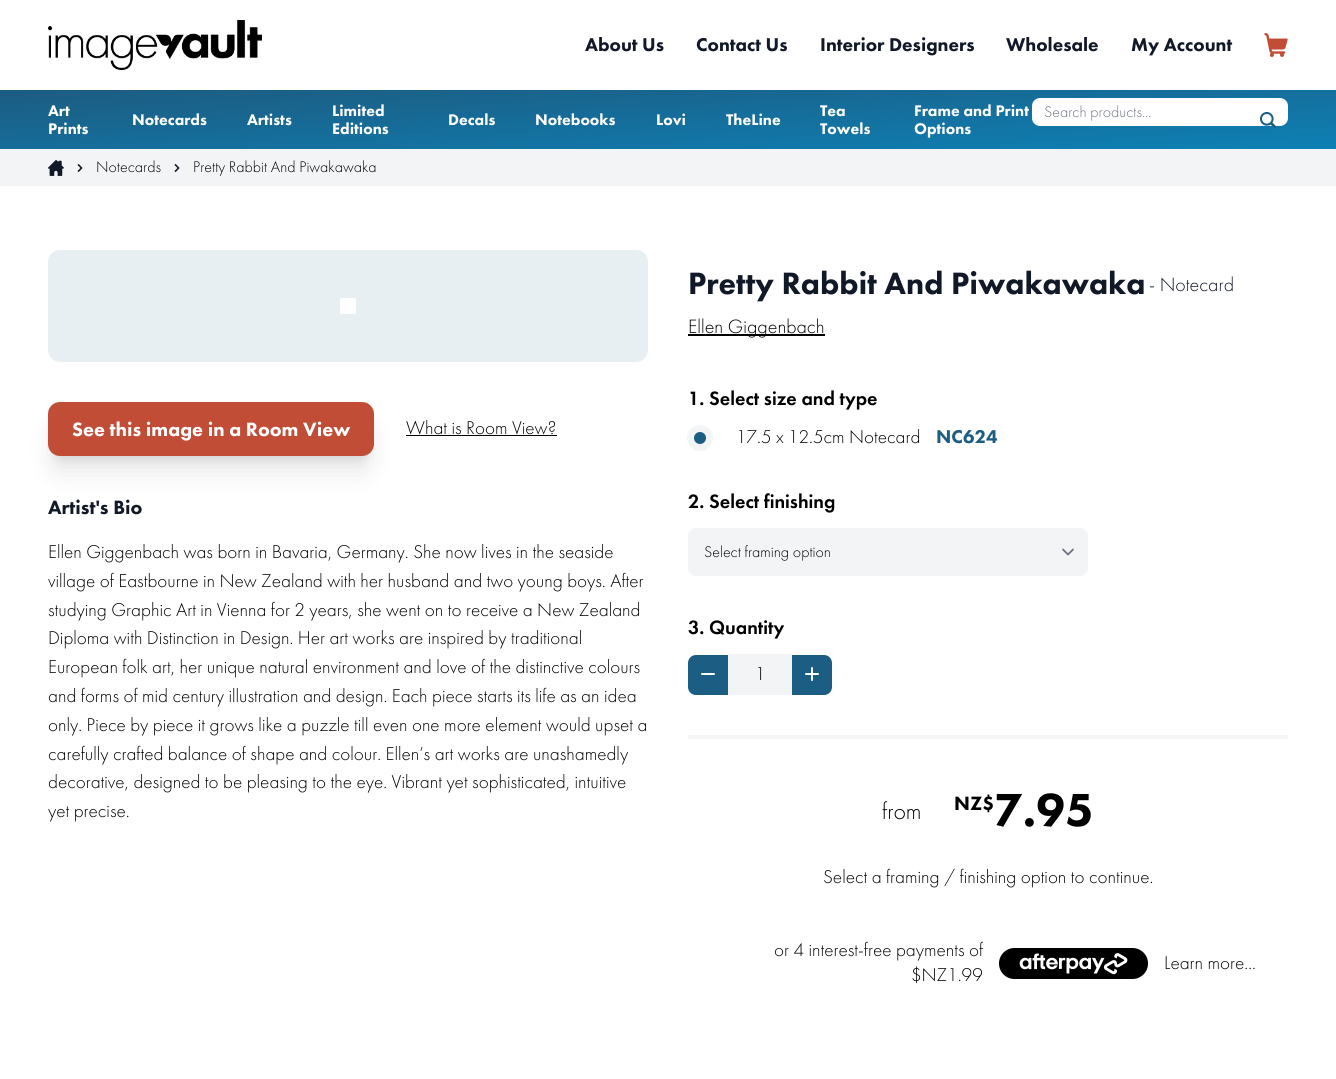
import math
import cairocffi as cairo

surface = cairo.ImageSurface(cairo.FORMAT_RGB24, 1336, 1079)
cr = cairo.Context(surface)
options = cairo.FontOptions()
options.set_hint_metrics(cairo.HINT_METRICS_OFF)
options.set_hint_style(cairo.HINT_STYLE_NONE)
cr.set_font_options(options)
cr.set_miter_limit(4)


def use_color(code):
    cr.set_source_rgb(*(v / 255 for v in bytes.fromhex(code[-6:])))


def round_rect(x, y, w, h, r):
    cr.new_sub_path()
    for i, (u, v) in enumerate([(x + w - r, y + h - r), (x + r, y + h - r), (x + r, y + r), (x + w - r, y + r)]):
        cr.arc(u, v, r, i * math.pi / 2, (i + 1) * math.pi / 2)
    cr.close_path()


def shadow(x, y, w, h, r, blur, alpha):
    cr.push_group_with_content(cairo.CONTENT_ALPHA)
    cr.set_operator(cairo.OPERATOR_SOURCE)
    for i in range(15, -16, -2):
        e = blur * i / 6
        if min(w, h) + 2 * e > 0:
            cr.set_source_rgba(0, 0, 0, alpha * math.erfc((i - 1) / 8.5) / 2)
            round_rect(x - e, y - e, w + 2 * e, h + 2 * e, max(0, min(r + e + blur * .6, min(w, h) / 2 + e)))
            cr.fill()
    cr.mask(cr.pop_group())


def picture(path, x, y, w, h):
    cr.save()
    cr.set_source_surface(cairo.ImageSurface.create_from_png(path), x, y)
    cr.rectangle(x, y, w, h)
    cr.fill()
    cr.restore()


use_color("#ffffff")
cr.paint()
picture("img1.png", 48, 20, 214, 50)
cr.select_font_face("Futura PT Black")
cr.set_font_size(19.2)
use_color("#111827")
cr.move_to(585, 51)
cr.show_text("About Us")
cr.move_to(696, 51)
cr.show_text("Contact Us")
cr.move_to(820, 51)
cr.show_text("Interior Designers")
cr.move_to(1006, 51)
cr.show_text("Wholesale")
cr.move_to(1131, 51)
cr.show_text("My Account")
picture("img2.png", 1264, 33, 24, 24)
gradient = cairo.LinearGradient(665, 61, 671, 178)
gradient.add_color_stop_rgba(0, 0.11, 0.365, 0.514, 1)
gradient.add_color_stop_rgba(1, 0.055, 0.498, 0.702, 1)
cr.set_source(gradient)
cr.rectangle(0, 90, 1336, 59)
cr.fill()
cr.set_font_size(16)
use_color("#ffffff")
cr.move_to(48, 116)
cr.show_text("Art")
cr.move_to(48, 134)
cr.show_text("Prints")
cr.move_to(132, 125)
cr.show_text("Notecards")
cr.move_to(247, 125)
cr.show_text("Artists")
cr.move_to(332, 116)
cr.show_text("Limited")
cr.move_to(332, 134)
cr.show_text("Editions")
cr.move_to(448, 125)
cr.show_text("Decals")
cr.move_to(535, 125)
cr.show_text("Notebooks")
cr.move_to(656, 125)
cr.show_text("Lovi")
cr.move_to(726, 125)
cr.show_text("TheLine")
cr.move_to(820, 116)
cr.show_text("Tea")
cr.move_to(820, 134)
cr.show_text("Towels")
cr.move_to(914, 116)
cr.show_text("Frame and Print")
cr.move_to(914, 134)
cr.show_text("Options")
round_rect(1032, 98, 256, 28, 8)
cr.fill()
cr.select_font_face("Futura PT Light")
use_color("#6b7280")
cr.move_to(1044, 117)
cr.show_text("Search products...")
picture("img3.png", 1260, 112, 16, 16)
use_color("#f3f4f6")
cr.rectangle(0, 149, 1336, 37)
cr.fill()
picture("img4.png", 48, 160, 16, 16)
picture("img5.png", 77, 164, 6, 8)
use_color("#000000")
cr.move_to(96, 172)
cr.show_text("Notecards")
picture("img5.png", 174, 164, 6, 8)
cr.move_to(193, 172)
cr.show_text("Pretty Rabbit And Piwakawaka")
use_color("#e8eff3")
round_rect(48, 250, 600, 112, 12)
cr.fill()
use_color("#ffffff")
cr.rectangle(340, 298, 16, 16)
cr.fill()
use_color("#000000")
shadow(54, 416, 314, 42, 6, 5, 0.1)
shadow(53, 427, 316, 44, 7, 12.5, 0.1)
use_color("#c24d36")
round_rect(48, 402, 326, 54, 12)
cr.fill()
cr.select_font_face("Futura PT Black")
cr.set_font_size(20)
use_color("#ffffff")
cr.move_to(72, 436)
cr.show_text("See this image in a Room View")
cr.select_font_face("Futura PT Light")
cr.set_font_size(19.2)
use_color("#000000")
cr.move_to(406, 434)
cr.show_text("What is Room View?")
cr.rectangle(406, 435, 151, 1)
cr.fill()
cr.select_font_face("Futura PT Black")
cr.set_font_size(20)
use_color("#111827")
cr.move_to(48, 514)
cr.show_text("Artist's Bio")
cr.select_font_face("Futura PT Light")
cr.set_font_size(19.2)
use_color("#000000")
cr.move_to(48, 558)
cr.show_text("Ellen Giggenbach was born in Bavaria, Germany. She now lives in the seaside")
cr.move_to(48, 587)
cr.show_text("village of Eastbourne in New Zealand with her husband and two young boys. After")
cr.move_to(48, 616)
cr.show_text("studying Graphic Art in Vienna for 2 years, she went on to receive a New Zealand")
cr.move_to(48, 644)
cr.show_text("Diploma with Distinction in Design. Her art works are inspired by traditional")
cr.move_to(48, 673)
cr.show_text("European folk art, her unique natural environment and love of the distinctive colours")
cr.move_to(48, 702)
cr.show_text("and forms of mid century illustration and design. Each piece starts its life as an idea")
cr.move_to(48, 731)
cr.show_text("only. Piece by piece it grows like a puzzle till even one more element would upset a")
cr.move_to(48, 760)
cr.show_text("carefully crafted balance of shape and colour. Ellen’s art works are unashamedly")
cr.move_to(48, 788)
cr.show_text("decorative, designed to be pleasing to the eye. Vibrant yet sophisticated, intuitive")
cr.move_to(48, 817)
cr.show_text("yet precise.")
cr.select_font_face("Futura PT Black")
cr.set_font_size(32)
use_color("#111827")
cr.move_to(688, 294)
cr.show_text("Pretty Rabbit And Piwakawaka")
cr.select_font_face("Futura PT Light")
cr.set_font_size(20)
cr.move_to(1149, 291)
cr.show_text("- Notecard")
use_color("#000000")
cr.rectangle(688, 334, 137, 2)
cr.fill()
cr.move_to(688, 333)
cr.show_text("Ellen Giggenbach")
cr.select_font_face("Futura PT Medium")
cr.move_to(688, 405)
cr.show_text("1. Select size and type")
cr.new_path()
cr.arc(700, 438, 12.5, 0, 2 * math.pi)
use_color("#f3f4f6")
cr.set_line_width(1)
cr.stroke()
cr.arc(700, 438, 12, 0, 2 * math.pi)
cr.fill()
use_color("#1c5d83")
cr.arc(700, 438, 6, 0, 2 * math.pi)
cr.fill()
cr.select_font_face("Futura PT Light")
cr.set_font_size(19.2)
use_color("#000000")
cr.move_to(736, 443)
cr.show_text("17.5 x 12.5cm Notecard")
cr.select_font_face("Futura PT Black")
use_color("#1c5d83")
cr.move_to(936, 443)
cr.show_text("NC624")
cr.select_font_face("Futura PT Medium")
cr.set_font_size(20)
use_color("#000000")
cr.move_to(688, 508)
cr.show_text("2. Select finishing")
use_color("#f3f4f6")
round_rect(688, 528, 400, 48, 8)
cr.fill()
cr.new_path()
cr.move_to(1063, 549.5)
cr.line_to(1068, 554.5)
cr.line_to(1073, 549.5)
use_color("#6b7280")
cr.set_line_width(1.8)
cr.set_line_cap(cairo.LINE_CAP_ROUND)
cr.set_line_join(cairo.LINE_JOIN_ROUND)
cr.stroke()
cr.select_font_face("Futura PT Light")
cr.set_font_size(16)
use_color("#000000")
cr.move_to(704, 557)
cr.show_text("Select framing option")
cr.select_font_face("Futura PT Medium")
cr.set_font_size(20)
cr.move_to(688, 634)
cr.show_text("3. Quantity")
use_color("#1c5d83")
cr.new_path()
cr.move_to(696, 655)
cr.line_to(728, 655)
cr.line_to(728, 695)
cr.line_to(696, 695)
cr.curve_to(691.5, 695, 688, 691.5, 688, 687)
cr.line_to(688, 663)
cr.curve_to(688, 658.5, 691.5, 655, 696, 655)
cr.close_path()
cr.fill()
picture("img6.png", 701, 673, 14, 2)
use_color("#f3f4f6")
cr.rectangle(728, 654, 64, 41)
cr.fill()
cr.select_font_face("Futura PT Light")
cr.set_font_size(19.2)
use_color("#000000")
cr.move_to(755, 680)
cr.show_text("1")
use_color("#1c5d83")
cr.new_path()
cr.move_to(792, 655)
cr.line_to(824, 655)
cr.curve_to(828.5, 655, 832, 658.5, 832, 663)
cr.line_to(832, 687)
cr.curve_to(832, 691.5, 828.5, 695, 824, 695)
cr.line_to(792, 695)
cr.close_path()
cr.fill()
picture("img7.png", 805, 667, 14, 14)
use_color("#f6f6f6")
cr.rectangle(688, 735, 600, 4)
cr.fill()
cr.set_font_size(24)
use_color("#000000")
cr.move_to(882, 819)
cr.show_text("from")
cr.select_font_face("Futura PT Black")
cr.set_font_size(20)
cr.move_to(954, 810)
cr.show_text("NZ$")
cr.set_font_size(48)
cr.move_to(994, 826)
cr.show_text("7.95")
cr.select_font_face("Futura PT Light")
cr.set_font_size(19.2)
cr.move_to(823, 883)
cr.show_text("Select a framing / finishing option to continue.")
cr.move_to(774, 956)
cr.show_text("or 4 interest-free payments of")
cr.move_to(911, 981)
cr.show_text("$NZ1.99")
picture("img8.png", 999, 948, 149, 31)
cr.move_to(1164, 969)
cr.show_text("Learn more...")
surface.write_to_png("result.png")
